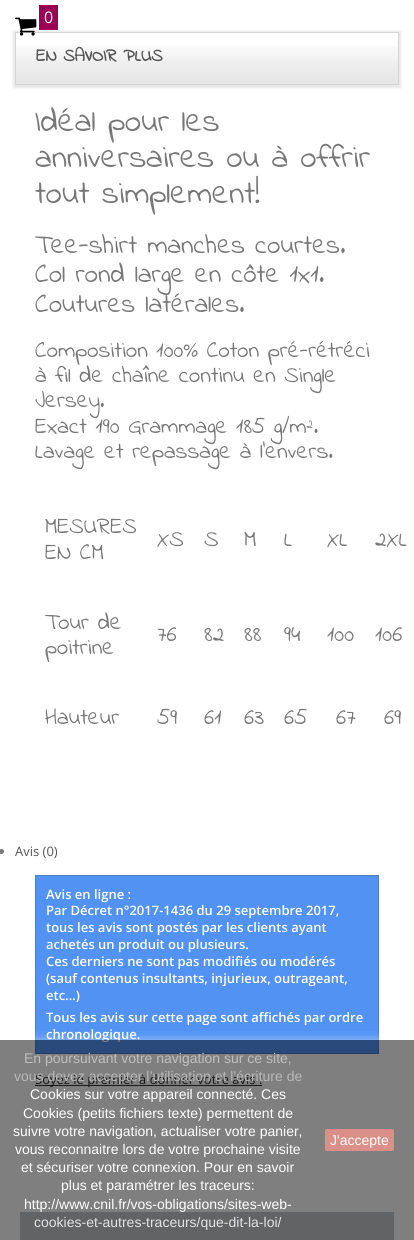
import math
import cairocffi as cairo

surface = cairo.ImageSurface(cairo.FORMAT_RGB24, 414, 1240)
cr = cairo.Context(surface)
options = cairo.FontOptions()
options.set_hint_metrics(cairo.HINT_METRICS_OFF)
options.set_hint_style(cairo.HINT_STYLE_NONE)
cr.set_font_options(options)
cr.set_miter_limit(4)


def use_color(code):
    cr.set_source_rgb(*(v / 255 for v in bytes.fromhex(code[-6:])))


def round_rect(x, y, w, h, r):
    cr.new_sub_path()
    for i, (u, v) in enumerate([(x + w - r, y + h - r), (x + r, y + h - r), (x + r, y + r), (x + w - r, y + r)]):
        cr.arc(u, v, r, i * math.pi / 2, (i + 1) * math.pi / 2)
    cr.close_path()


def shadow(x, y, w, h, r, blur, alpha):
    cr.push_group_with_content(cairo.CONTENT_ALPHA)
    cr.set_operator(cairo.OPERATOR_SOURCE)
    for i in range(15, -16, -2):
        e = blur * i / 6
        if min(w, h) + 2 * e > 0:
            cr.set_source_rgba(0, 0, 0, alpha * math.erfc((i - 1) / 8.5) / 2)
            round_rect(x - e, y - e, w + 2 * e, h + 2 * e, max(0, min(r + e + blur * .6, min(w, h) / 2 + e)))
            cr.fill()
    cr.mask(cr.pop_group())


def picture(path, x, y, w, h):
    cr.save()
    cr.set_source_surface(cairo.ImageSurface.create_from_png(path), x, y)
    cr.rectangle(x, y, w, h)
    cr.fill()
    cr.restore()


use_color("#ffffff")
cr.paint()
cr.save()
cr.set_fill_rule(cairo.FILL_RULE_EVEN_ODD)
cr.new_path()
cr.move_to(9, 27)
cr.line_to(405, 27)
cr.line_to(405, 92)
cr.line_to(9, 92)
cr.close_path()
cr.move_to(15, 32)
cr.line_to(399, 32)
cr.line_to(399, 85)
cr.line_to(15, 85)
cr.close_path()
cr.clip()
use_color("#e7e7e7")
shadow(13, 31, 388, 57, 0, 1, 1)
cr.restore()
picture("img2.png", 16, 46, 382, 38)
cr.rectangle(15.5, 32.5, 383, 52)
use_color("#d6d4d4")
cr.set_line_width(1)
cr.stroke()
picture("img1.png", 15, 17, 22, 19)
use_color("#9b0054")
cr.rectangle(39, 5, 19, 25)
cr.fill()
cr.select_font_face("Open Sans")
cr.set_font_size(16)
use_color("#ffffff")
cr.move_to(44, 23)
cr.show_text("0")
cr.select_font_face("Indie Flower", cairo.FONT_SLANT_NORMAL, cairo.FONT_WEIGHT_BOLD)
cr.set_font_size(18)
use_color("#555555")
cr.move_to(36, 61)
cr.show_text("EN SAVOIR PLUS")
cr.select_font_face("Indie Flower")
cr.set_font_size(33)
use_color("#777777")
cr.move_to(35, 131)
cr.show_text("Idéal pour les")
cr.move_to(35, 167)
cr.show_text("anniversaires ou à offrir")
cr.move_to(35, 203)
cr.show_text("tout simplement!")
cr.set_font_size(27)
cr.move_to(35, 253)
cr.show_text("Tee-shirt manches courtes.")
cr.move_to(35, 282)
cr.show_text("Col rond large en côte 1x1.")
cr.move_to(35, 312)
cr.show_text("Coutures latérales.")
cr.set_font_size(23)
cr.move_to(35, 357)
cr.show_text("Composition 100% Coton pré-rétréci")
cr.move_to(35, 382)
cr.show_text("à fil de chaîne continu en Single")
cr.move_to(35, 407)
cr.show_text("Jersey.")
cr.move_to(35, 433)
cr.show_text("Exact 190 Grammage 185 g/m².")
cr.move_to(35, 458)
cr.show_text("Lavage et repassage à l'envers.")
cr.move_to(45, 533)
cr.show_text("MESURES")
cr.move_to(45, 559)
cr.show_text("EN CM")
cr.move_to(157, 546)
cr.show_text("XS")
cr.move_to(204, 546)
cr.show_text("S")
cr.move_to(244, 546)
cr.show_text("M")
cr.move_to(284, 546)
cr.show_text("L")
cr.move_to(327, 546)
cr.show_text("XL")
cr.move_to(375, 546)
cr.show_text("2XL")
cr.move_to(45, 629)
cr.show_text("Tour de")
cr.move_to(45, 654)
cr.show_text("poitrine")
cr.move_to(157, 641)
cr.show_text("76")
cr.move_to(204, 641)
cr.show_text("82")
cr.move_to(244, 641)
cr.show_text("88")
cr.move_to(284, 641)
cr.show_text("94")
cr.move_to(327, 641)
cr.show_text("100")
cr.move_to(375, 641)
cr.show_text("106")
cr.move_to(45, 724)
cr.show_text("Hauteur")
cr.move_to(157, 724)
cr.show_text("59")
cr.move_to(204, 724)
cr.show_text("61")
cr.move_to(244, 724)
cr.show_text("63")
cr.move_to(284, 724)
cr.show_text("65")
cr.move_to(336, 724)
cr.show_text("67")
cr.move_to(384, 724)
cr.show_text("69")
cr.new_path()
cr.arc(1.5, 851.5, 2.5, 0, 2 * math.pi)
cr.fill()
cr.select_font_face("Open Sans")
cr.set_font_size(13)
use_color("#555555")
cr.move_to(15, 856)
cr.show_text("Avis (0)")
use_color("#5192f3")
cr.rectangle(35.5, 875.5, 343, 178)
cr.fill_preserve()
use_color("#4b80c3")
cr.stroke()
cr.select_font_face("Open Sans SemiBold")
use_color("#ffffff")
cr.move_to(46, 899)
cr.show_text("Avis en ligne :")
cr.move_to(46, 915)
cr.show_text("Par Décret n°2017-1436 du 29 septembre 2017,")
cr.move_to(46, 932)
cr.show_text("tous les avis sont postés par les clients ayant")
cr.move_to(46, 949)
cr.show_text("achetés un produit ou plusieurs.")
cr.move_to(46, 966)
cr.show_text("Ces derniers ne sont pas modifiés ou modérés")
cr.move_to(46, 983)
cr.show_text("(sauf contenus insultants, injurieux, outrageant,")
cr.move_to(46, 1000)
cr.show_text("etc...)")
cr.move_to(46, 1022)
cr.show_text("Tous les avis sur cette page sont affichés par ordre")
cr.move_to(46, 1039)
cr.show_text("chronologique.")
use_color("#333333")
cr.rectangle(35, 1085, 227, 1)
cr.fill()
cr.select_font_face("Open Sans")
cr.move_to(35, 1084)
cr.show_text("Soyez le premier à donner votre avis !")
use_color("#c3c7cb")
cr.rectangle(20, 1212, 374, 28)
cr.fill()
cr.save()
cr.rectangle(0, 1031, 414, 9)
cr.clip()
use_color("#ffffff")
shadow(0, 1040, 414, 200, 0, 5, 0.5)
cr.restore()
cr.set_source_rgba(0, 0, 0, 0.5)
cr.rectangle(0, 1040, 414, 200)
cr.fill()
cr.select_font_face("Liberation Sans")
cr.set_font_size(14)
use_color("#bfbfbf")
cr.move_to(24, 1063)
cr.show_text("En poursuivant votre navigation sur ce site,")
use_color("#b9b9b9")
cr.move_to(14, 1081)
cr.show_text("vous devez accepter l’utilisation et l'écriture de")
use_color("#ffffff")
cr.move_to(30, 1099)
cr.show_text("Cookies sur votre appareil connecté. Ces")
cr.move_to(23, 1118)
cr.show_text("Cookies (petits fichiers texte) permettent de")
cr.move_to(13, 1136)
cr.show_text("suivre votre navigation, actualiser votre panier,")
cr.move_to(15, 1154)
cr.show_text("vous reconnaitre lors de votre prochaine visite")
cr.move_to(21, 1172)
cr.show_text("et sécuriser votre connexion. Pour en savoir")
cr.move_to(61, 1190)
cr.show_text("plus et paramétrer les traceurs:")
cr.move_to(24, 1209)
cr.show_text("http://www.cnil.fr/vos-obligations/sites-web-")
use_color("#e1e3e5")
cr.move_to(34, 1227)
cr.show_text("cookies-et-autres-traceurs/que-dit-la-loi/")
use_color("#da9088")
round_rect(325, 1129, 69, 22, 2)
cr.fill()
use_color("#ffffff")
cr.move_to(330, 1145)
cr.show_text("J'accepte")
surface.write_to_png("result.png")
